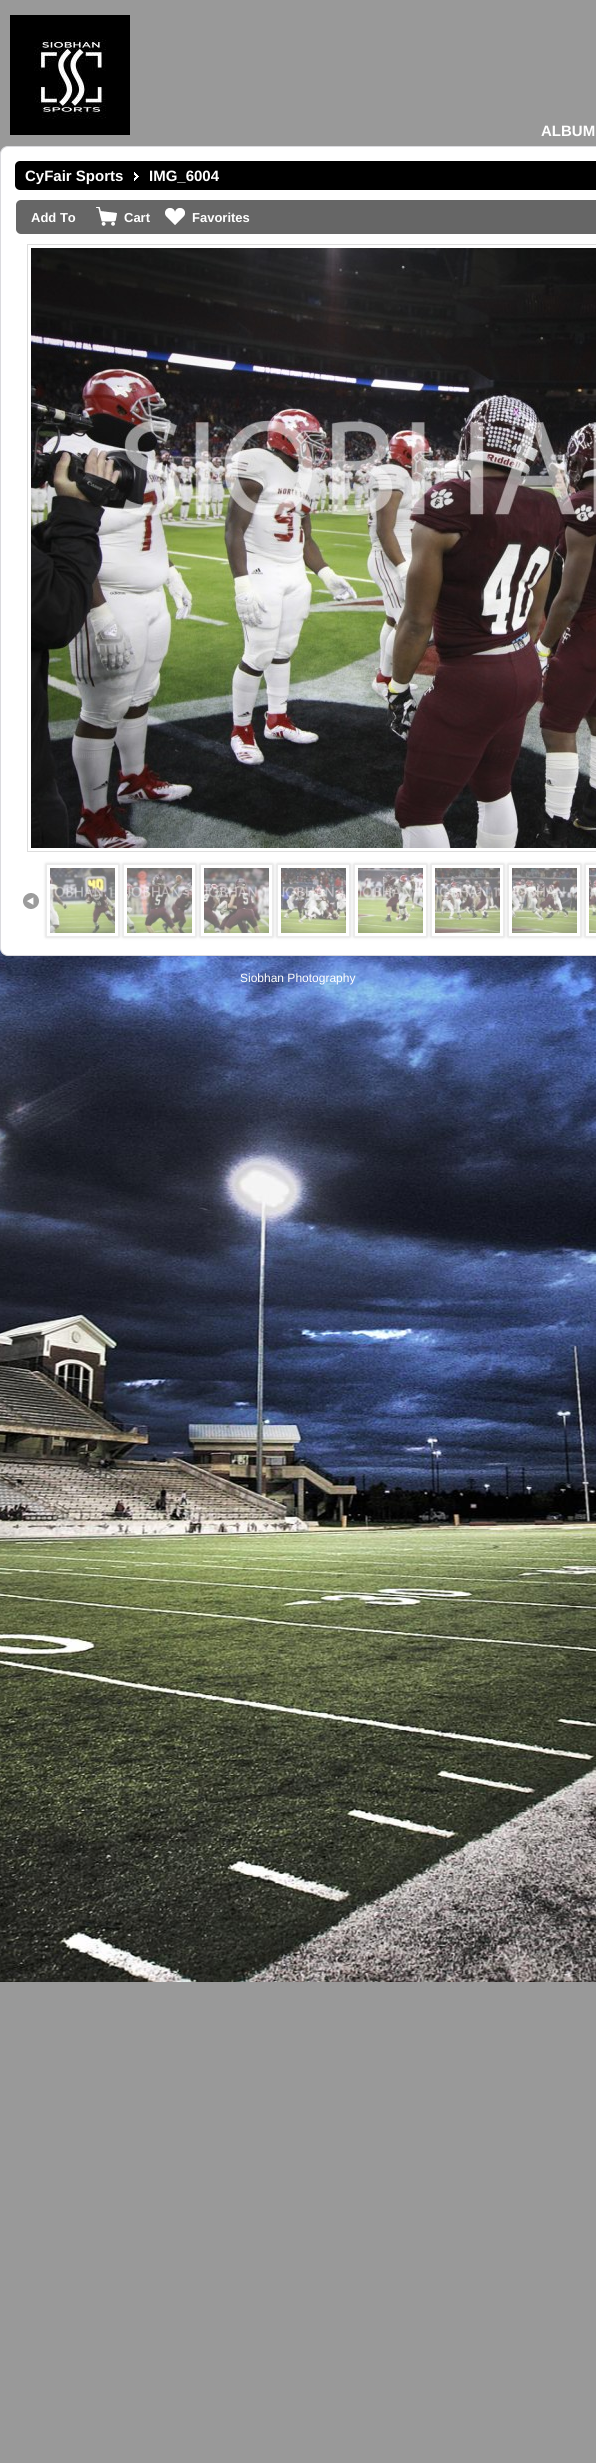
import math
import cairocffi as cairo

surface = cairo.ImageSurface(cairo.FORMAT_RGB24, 596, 2463)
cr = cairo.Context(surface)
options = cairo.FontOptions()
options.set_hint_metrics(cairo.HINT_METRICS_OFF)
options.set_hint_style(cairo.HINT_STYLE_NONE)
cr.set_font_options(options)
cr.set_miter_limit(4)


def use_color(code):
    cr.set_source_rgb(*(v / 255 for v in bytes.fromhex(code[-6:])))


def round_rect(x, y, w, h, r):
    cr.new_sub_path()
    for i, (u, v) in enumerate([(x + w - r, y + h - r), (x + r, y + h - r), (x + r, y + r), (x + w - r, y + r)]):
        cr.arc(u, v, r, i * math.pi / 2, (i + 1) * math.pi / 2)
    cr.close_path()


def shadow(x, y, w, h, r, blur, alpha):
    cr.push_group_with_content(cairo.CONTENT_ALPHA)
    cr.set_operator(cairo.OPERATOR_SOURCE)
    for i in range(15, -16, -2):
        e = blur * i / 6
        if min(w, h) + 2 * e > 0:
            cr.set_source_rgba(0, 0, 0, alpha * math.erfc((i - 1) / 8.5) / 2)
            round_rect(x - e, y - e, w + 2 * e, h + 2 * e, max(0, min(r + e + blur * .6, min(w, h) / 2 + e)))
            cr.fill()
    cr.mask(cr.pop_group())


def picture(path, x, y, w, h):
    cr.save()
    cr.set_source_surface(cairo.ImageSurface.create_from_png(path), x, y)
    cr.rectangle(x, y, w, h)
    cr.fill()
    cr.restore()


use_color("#999999")
cr.paint()
picture("img1.png", 0, 948, 596, 1034)
picture("img2.png", 10, 15, 120, 120)
cr.select_font_face("Liberation Sans", cairo.FONT_SLANT_NORMAL, cairo.FONT_WEIGHT_BOLD)
cr.set_font_size(15)
use_color("#ffffff")
cr.move_to(541, 136)
cr.show_text("ALBUM")
round_rect(0.5, 146.5, 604, 809, 7.5)
cr.fill_preserve()
use_color("#dadade")
cr.set_line_width(1)
cr.stroke()
use_color("#000000")
round_rect(15, 161, 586, 29, 5)
cr.fill()
use_color("#ffffff")
cr.move_to(25, 181)
cr.show_text("CyFair Sports")
picture("img3.png", 134, 172, 5, 9)
cr.move_to(149, 181)
cr.show_text("IMG_6004")
use_color("#666666")
round_rect(16, 200, 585, 34, 5)
cr.fill()
cr.set_font_size(13)
use_color("#ffffff")
cr.move_to(31, 222)
cr.show_text("Add To")
picture("img4.png", 96, 207, 21, 19)
cr.move_to(124, 222)
cr.show_text("Cart")
picture("img5.png", 165, 208, 20, 17)
cr.move_to(192, 222)
cr.show_text("Favorites")
cr.rectangle(27.5, 244.5, 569, 607)
use_color("#dddddd")
cr.stroke()
picture("img6.png", 31, 248, 565, 600)
picture("img7.png", 23, 893, 16, 16)
cr.save()
cr.set_fill_rule(cairo.FILL_RULE_EVEN_ODD)
cr.new_path()
cr.move_to(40, 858)
cr.line_to(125, 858)
cr.line_to(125, 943)
cr.line_to(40, 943)
cr.close_path()
cr.move_to(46, 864)
cr.line_to(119, 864)
cr.line_to(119, 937)
cr.line_to(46, 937)
cr.close_path()
cr.clip()
use_color("#cccccc")
shadow(46, 864, 73, 73, 0, 1.5, 1)
cr.restore()
cr.rectangle(46.5, 864.5, 72, 72)
use_color("#ebebeb")
cr.stroke()
picture("img8.png", 50, 868, 65, 65)
cr.save()
cr.set_fill_rule(cairo.FILL_RULE_EVEN_ODD)
cr.new_path()
cr.move_to(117, 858)
cr.line_to(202, 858)
cr.line_to(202, 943)
cr.line_to(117, 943)
cr.close_path()
cr.move_to(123, 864)
cr.line_to(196, 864)
cr.line_to(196, 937)
cr.line_to(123, 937)
cr.close_path()
cr.clip()
use_color("#aaaaaa")
shadow(123, 864, 73, 73, 0, 1.5, 0.6)
cr.restore()
cr.rectangle(123.5, 864.5, 72, 72)
cr.stroke()
picture("img9.png", 127, 868, 65, 65)
cr.save()
cr.set_fill_rule(cairo.FILL_RULE_EVEN_ODD)
cr.new_path()
cr.move_to(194, 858)
cr.line_to(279, 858)
cr.line_to(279, 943)
cr.line_to(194, 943)
cr.close_path()
cr.move_to(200, 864)
cr.line_to(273, 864)
cr.line_to(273, 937)
cr.line_to(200, 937)
cr.close_path()
cr.clip()
use_color("#aaaaaa")
shadow(200, 864, 73, 73, 0, 1.5, 0.6)
cr.restore()
cr.rectangle(200.5, 864.5, 72, 72)
cr.stroke()
picture("img10.png", 204, 868, 65, 65)
cr.save()
cr.set_fill_rule(cairo.FILL_RULE_EVEN_ODD)
cr.new_path()
cr.move_to(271, 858)
cr.line_to(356, 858)
cr.line_to(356, 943)
cr.line_to(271, 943)
cr.close_path()
cr.move_to(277, 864)
cr.line_to(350, 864)
cr.line_to(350, 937)
cr.line_to(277, 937)
cr.close_path()
cr.clip()
use_color("#aaaaaa")
shadow(277, 864, 73, 73, 0, 1.5, 0.6)
cr.restore()
cr.rectangle(277.5, 864.5, 72, 72)
cr.stroke()
picture("img11.png", 281, 868, 65, 65)
cr.save()
cr.set_fill_rule(cairo.FILL_RULE_EVEN_ODD)
cr.new_path()
cr.move_to(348, 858)
cr.line_to(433, 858)
cr.line_to(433, 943)
cr.line_to(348, 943)
cr.close_path()
cr.move_to(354, 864)
cr.line_to(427, 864)
cr.line_to(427, 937)
cr.line_to(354, 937)
cr.close_path()
cr.clip()
use_color("#aaaaaa")
shadow(354, 864, 73, 73, 0, 1.5, 0.6)
cr.restore()
cr.rectangle(354.5, 864.5, 72, 72)
cr.stroke()
picture("img12.png", 358, 868, 65, 65)
cr.save()
cr.set_fill_rule(cairo.FILL_RULE_EVEN_ODD)
cr.new_path()
cr.move_to(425, 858)
cr.line_to(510, 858)
cr.line_to(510, 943)
cr.line_to(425, 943)
cr.close_path()
cr.move_to(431, 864)
cr.line_to(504, 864)
cr.line_to(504, 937)
cr.line_to(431, 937)
cr.close_path()
cr.clip()
use_color("#aaaaaa")
shadow(431, 864, 73, 73, 0, 1.5, 0.6)
cr.restore()
cr.rectangle(431.5, 864.5, 72, 72)
cr.stroke()
picture("img13.png", 435, 868, 65, 65)
cr.save()
cr.set_fill_rule(cairo.FILL_RULE_EVEN_ODD)
cr.new_path()
cr.move_to(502, 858)
cr.line_to(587, 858)
cr.line_to(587, 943)
cr.line_to(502, 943)
cr.close_path()
cr.move_to(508, 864)
cr.line_to(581, 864)
cr.line_to(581, 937)
cr.line_to(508, 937)
cr.close_path()
cr.clip()
use_color("#aaaaaa")
shadow(508, 864, 73, 73, 0, 1.5, 0.6)
cr.restore()
cr.rectangle(508.5, 864.5, 72, 72)
cr.stroke()
picture("img14.png", 512, 868, 65, 65)
cr.save()
cr.set_fill_rule(cairo.FILL_RULE_EVEN_ODD)
cr.new_path()
cr.move_to(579, 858)
cr.line_to(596, 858)
cr.line_to(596, 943)
cr.line_to(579, 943)
cr.close_path()
cr.move_to(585, 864)
cr.line_to(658, 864)
cr.line_to(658, 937)
cr.line_to(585, 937)
cr.close_path()
cr.clip()
use_color("#aaaaaa")
shadow(585, 864, 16, 73, 0, 1.5, 0.6)
cr.restore()
cr.rectangle(585.5, 864.5, 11, 72)
cr.stroke()
picture("img15.png", 589, 868, 7, 65)
cr.select_font_face("Liberation Sans")
cr.set_font_size(12)
use_color("#ffffff")
cr.move_to(240, 982)
cr.show_text("Siobhan Photography")
surface.write_to_png("result.png")
